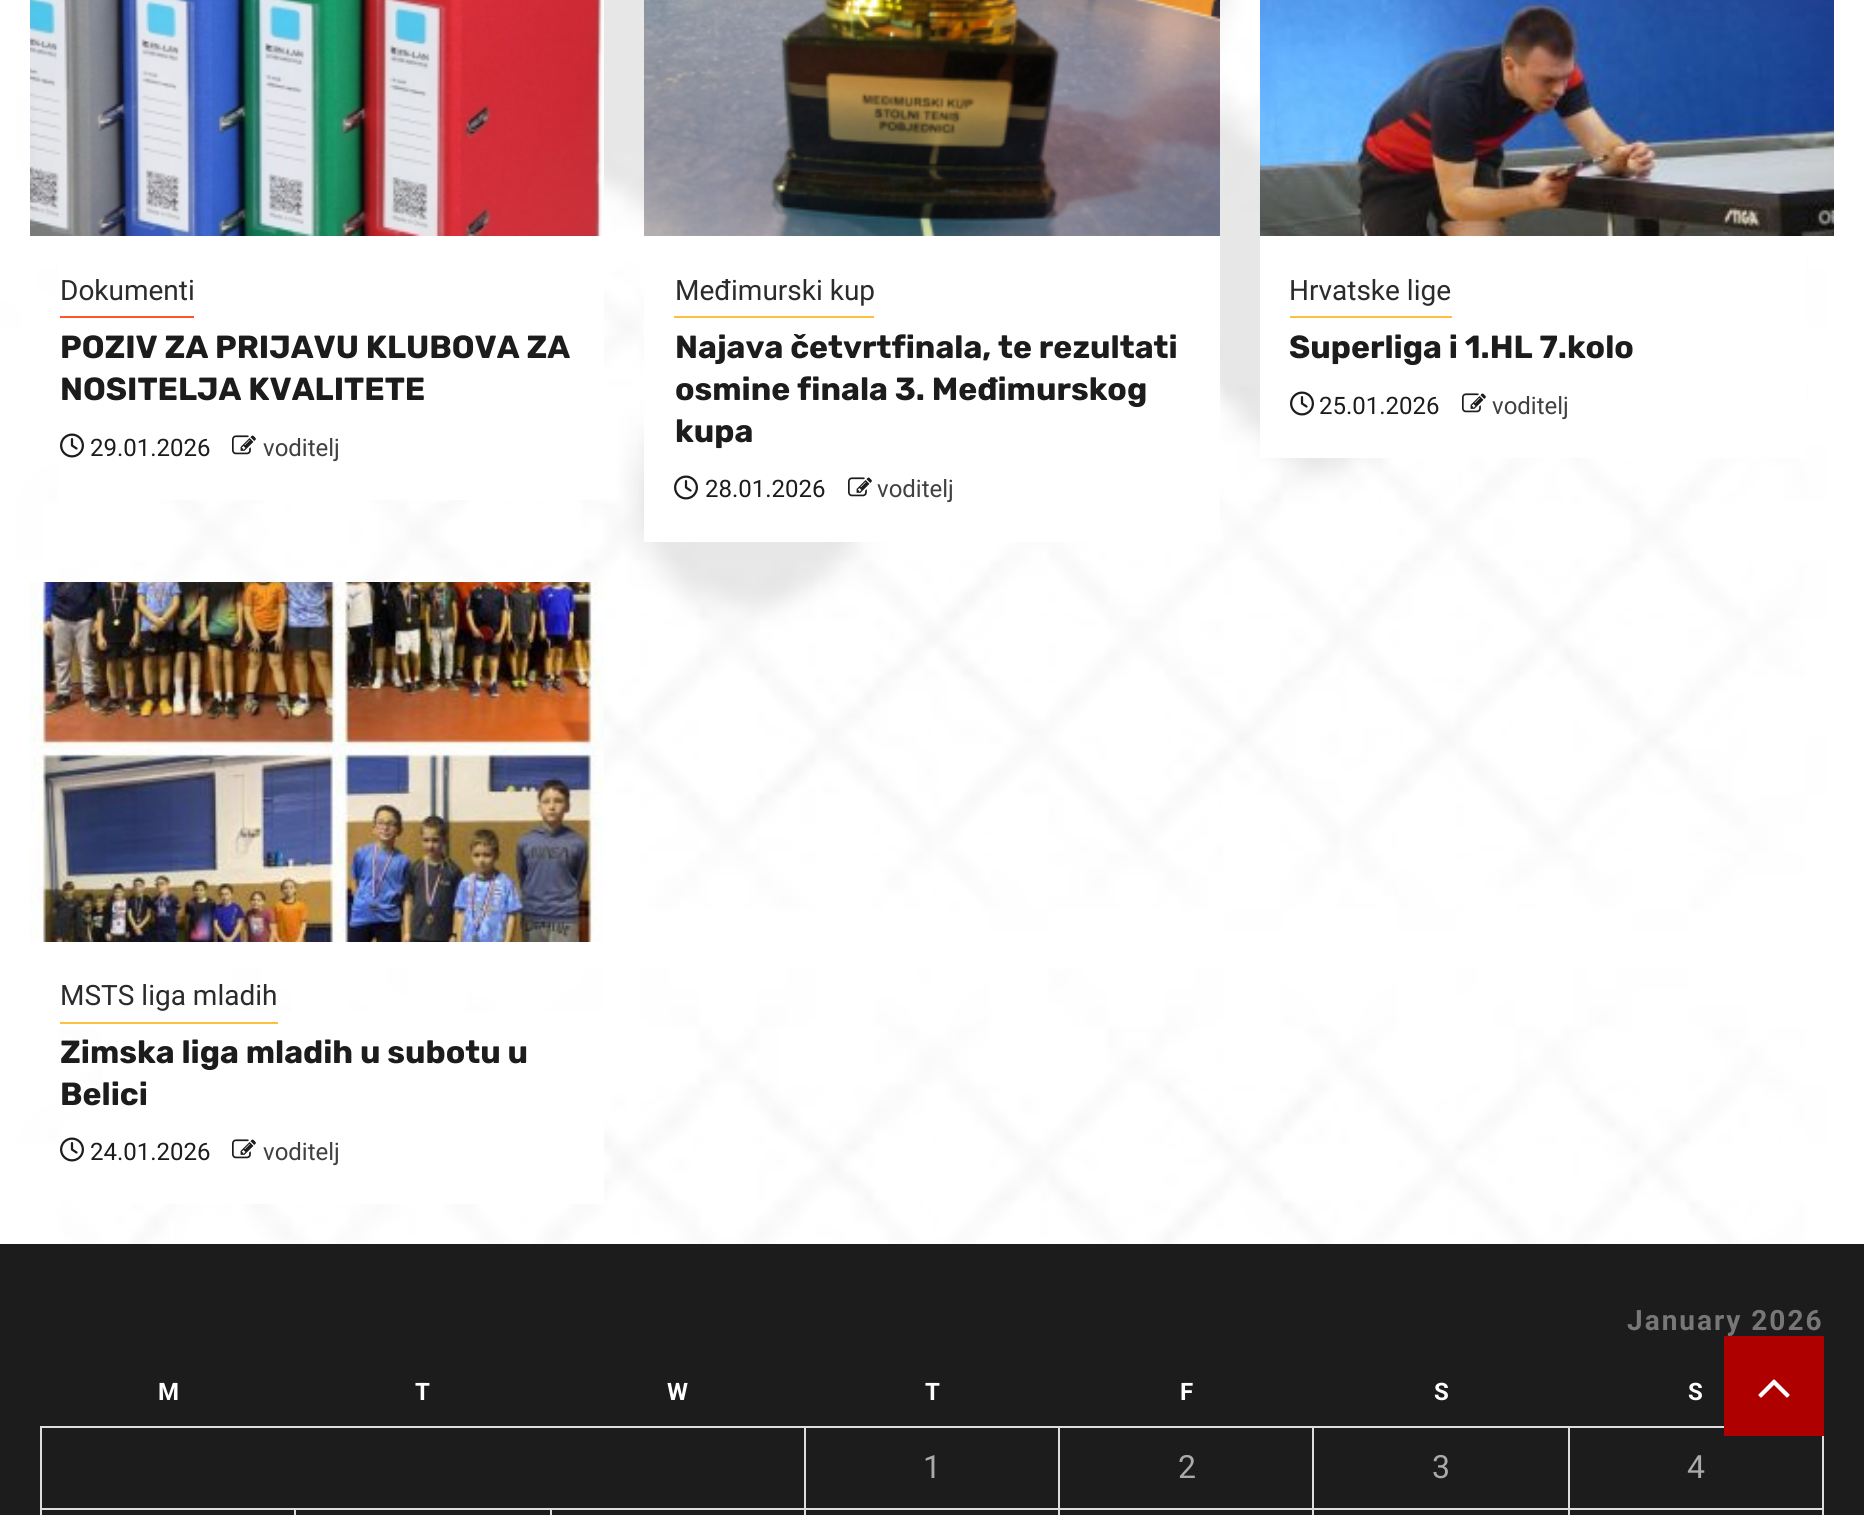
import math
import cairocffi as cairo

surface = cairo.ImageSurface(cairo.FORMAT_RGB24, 1864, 1515)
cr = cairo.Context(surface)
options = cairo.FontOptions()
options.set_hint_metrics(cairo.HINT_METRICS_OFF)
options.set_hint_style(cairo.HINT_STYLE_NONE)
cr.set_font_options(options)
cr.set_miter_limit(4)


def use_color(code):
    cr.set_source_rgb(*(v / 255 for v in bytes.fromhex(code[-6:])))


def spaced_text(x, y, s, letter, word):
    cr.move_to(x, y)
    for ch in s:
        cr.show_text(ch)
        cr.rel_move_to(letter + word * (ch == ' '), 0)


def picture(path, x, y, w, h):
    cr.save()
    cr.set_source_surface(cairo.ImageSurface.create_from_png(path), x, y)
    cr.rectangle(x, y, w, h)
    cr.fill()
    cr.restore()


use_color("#ffffff")
cr.paint()
picture("img1.png", 0, 0, 1864, 1244)
use_color("#ffffff")
cr.rectangle(58, 236, 546, 264)
cr.fill()
picture("img2.png", 30, 0, 574, 236)
use_color("#ff5722")
cr.rectangle(60, 316, 134, 2)
cr.fill()
cr.select_font_face("Roboto")
cr.set_font_size(28)
use_color("#2b2b2b")
cr.move_to(60, 300)
cr.show_text("Dokumenti")
cr.select_font_face("Rubik", cairo.FONT_SLANT_NORMAL, cairo.FONT_WEIGHT_BOLD)
cr.set_font_size(32)
use_color("#1c1c1c")
cr.move_to(60, 358)
cr.show_text("POZIV ZA PRIJAVU KLUBOVA ZA")
cr.move_to(60, 400)
cr.show_text("NOSITELJA KVALITETE")
picture("img3.png", 60, 433, 24, 25)
cr.select_font_face("Roboto")
cr.set_font_size(24)
cr.move_to(90, 456)
cr.show_text("29.01.2026")
picture("img4.png", 232, 435, 24, 20)
use_color("#404040")
cr.move_to(263, 456)
cr.show_text("voditelj")
use_color("#ffffff")
cr.rectangle(644, 236, 576, 306)
cr.fill()
picture("img5.png", 644, 0, 576, 236)
use_color("#ffbf3f")
cr.rectangle(674, 316, 200, 2)
cr.fill()
cr.set_font_size(28)
use_color("#2b2b2b")
cr.move_to(675, 300)
cr.show_text("Međimurski kup")
cr.select_font_face("Rubik", cairo.FONT_SLANT_NORMAL, cairo.FONT_WEIGHT_BOLD)
cr.set_font_size(32)
use_color("#1c1c1c")
cr.move_to(675, 358)
cr.show_text("Najava četvrtfinala, te rezultati")
cr.move_to(675, 400)
cr.show_text("osmine finala 3. Međimurskog")
cr.move_to(675, 442)
cr.show_text("kupa")
picture("img3.png", 674, 475, 24, 25)
cr.select_font_face("Roboto")
cr.set_font_size(24)
cr.move_to(705, 497)
cr.show_text("28.01.2026")
picture("img4.png", 848, 477, 24, 20)
use_color("#404040")
cr.move_to(877, 497)
cr.show_text("voditelj")
use_color("#ffffff")
cr.rectangle(1260, 236, 546, 222)
cr.fill()
picture("img6.png", 1260, 0, 574, 236)
use_color("#ffbf3f")
cr.rectangle(1290, 316, 162, 2)
cr.fill()
cr.set_font_size(28)
use_color("#2b2b2b")
cr.move_to(1289, 300)
cr.show_text("Hrvatske lige")
cr.select_font_face("Rubik", cairo.FONT_SLANT_NORMAL, cairo.FONT_WEIGHT_BOLD)
cr.set_font_size(32)
use_color("#1c1c1c")
cr.move_to(1289, 358)
cr.show_text("Superliga i 1.HL 7.kolo")
picture("img3.png", 1290, 391, 24, 25)
cr.select_font_face("Roboto")
cr.set_font_size(24)
cr.move_to(1319, 414)
cr.show_text("25.01.2026")
picture("img4.png", 1462, 393, 24, 20)
use_color("#404040")
cr.move_to(1492, 414)
cr.show_text("voditelj")
use_color("#ffffff")
cr.rectangle(102, 1012, 502, 192)
cr.fill()
picture("img7.png", 30, 582, 574, 360)
use_color("#ffbf3f")
cr.rectangle(60, 1022, 218, 2)
cr.fill()
cr.set_font_size(28)
use_color("#2b2b2b")
cr.move_to(60, 1005)
cr.show_text("MSTS liga mladih")
cr.select_font_face("Rubik", cairo.FONT_SLANT_NORMAL, cairo.FONT_WEIGHT_BOLD)
cr.set_font_size(32)
use_color("#1c1c1c")
cr.move_to(60, 1063)
cr.show_text("Zimska liga mladih u subotu u")
cr.move_to(60, 1105)
cr.show_text("Belici")
picture("img3.png", 60, 1137, 24, 25)
cr.select_font_face("Roboto")
cr.set_font_size(24)
cr.move_to(90, 1160)
cr.show_text("24.01.2026")
picture("img4.png", 232, 1139, 24, 20)
use_color("#404040")
cr.move_to(263, 1160)
cr.show_text("voditelj")
use_color("#1c1c1c")
cr.rectangle(0, 1244, 1864, 271)
cr.fill()
cr.select_font_face("Roboto", cairo.FONT_SLANT_NORMAL, cairo.FONT_WEIGHT_BOLD)
cr.set_font_size(28)
use_color("#777777")
spaced_text(1627, 1330, "January 2026", 2, 0)
cr.set_font_size(24)
use_color("#ffffff")
cr.move_to(158, 1400)
cr.show_text("M")
cr.move_to(415, 1400)
cr.show_text("T")
cr.move_to(667, 1400)
cr.show_text("W")
cr.move_to(925, 1400)
cr.show_text("T")
cr.move_to(1180, 1400)
cr.show_text("F")
cr.move_to(1434, 1400)
cr.show_text("S")
cr.move_to(1688, 1400)
cr.show_text("S")
use_color("#dddddd")
cr.rectangle(1568, 1508, 256, 2)
cr.fill()
cr.rectangle(1568, 1508, 2, 7)
cr.fill()
cr.rectangle(1312, 1508, 258, 2)
cr.fill()
cr.rectangle(1312, 1508, 2, 7)
cr.fill()
cr.rectangle(1058, 1508, 256, 2)
cr.fill()
cr.rectangle(1058, 1508, 2, 7)
cr.fill()
cr.rectangle(804, 1508, 256, 2)
cr.fill()
cr.rectangle(804, 1508, 2, 7)
cr.fill()
cr.rectangle(550, 1508, 256, 2)
cr.fill()
cr.rectangle(550, 1508, 2, 7)
cr.fill()
cr.rectangle(294, 1508, 258, 2)
cr.fill()
cr.rectangle(294, 1508, 2, 7)
cr.fill()
cr.rectangle(40, 1508, 256, 2)
cr.fill()
cr.rectangle(40, 1508, 2, 7)
cr.fill()
cr.rectangle(1822, 1436, 2, 79)
cr.fill()
cr.rectangle(1568, 1426, 156, 2)
cr.fill()
cr.rectangle(1568, 1426, 2, 84)
cr.fill()
cr.rectangle(1312, 1426, 258, 2)
cr.fill()
cr.rectangle(1312, 1426, 2, 84)
cr.fill()
cr.rectangle(1058, 1426, 256, 2)
cr.fill()
cr.rectangle(1058, 1426, 2, 84)
cr.fill()
cr.rectangle(804, 1426, 256, 2)
cr.fill()
cr.rectangle(804, 1426, 2, 84)
cr.fill()
cr.rectangle(40, 1426, 766, 2)
cr.fill()
cr.rectangle(40, 1426, 2, 84)
cr.fill()
cr.select_font_face("Roboto")
cr.set_font_size(32)
use_color("#aaaaaa")
cr.move_to(923, 1478)
cr.show_text("1")
cr.move_to(1178, 1478)
cr.show_text("2")
cr.move_to(1432, 1478)
cr.show_text("3")
cr.move_to(1687, 1478)
cr.show_text("4")
use_color("#af0000")
cr.rectangle(1724, 1336, 100, 100)
cr.fill()
picture("img8.png", 1758, 1379, 32, 19)
surface.write_to_png("result.png")
